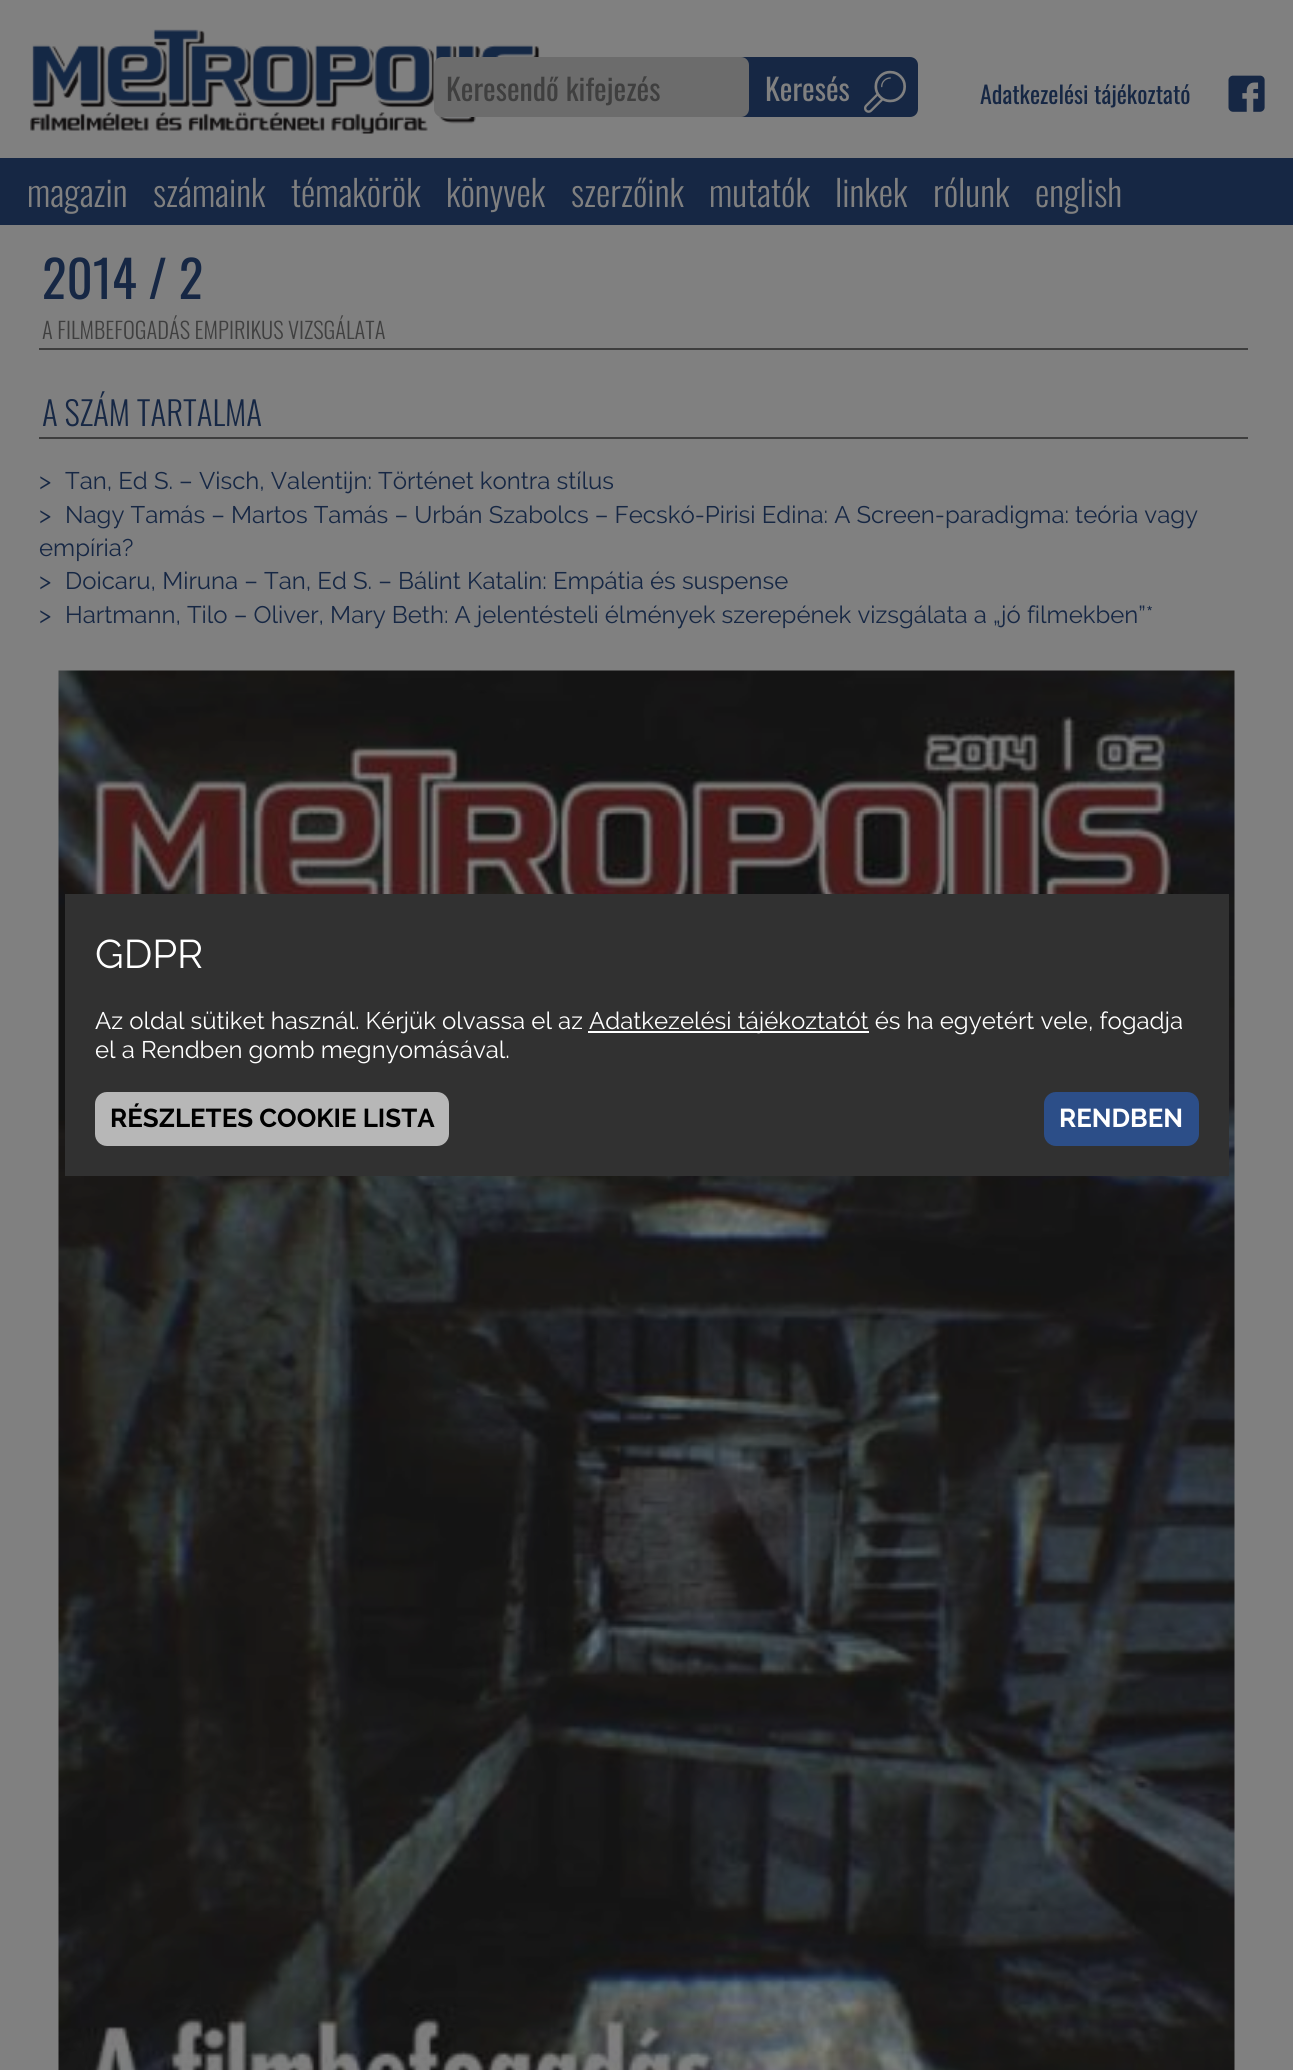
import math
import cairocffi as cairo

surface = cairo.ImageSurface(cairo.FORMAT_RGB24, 1293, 2070)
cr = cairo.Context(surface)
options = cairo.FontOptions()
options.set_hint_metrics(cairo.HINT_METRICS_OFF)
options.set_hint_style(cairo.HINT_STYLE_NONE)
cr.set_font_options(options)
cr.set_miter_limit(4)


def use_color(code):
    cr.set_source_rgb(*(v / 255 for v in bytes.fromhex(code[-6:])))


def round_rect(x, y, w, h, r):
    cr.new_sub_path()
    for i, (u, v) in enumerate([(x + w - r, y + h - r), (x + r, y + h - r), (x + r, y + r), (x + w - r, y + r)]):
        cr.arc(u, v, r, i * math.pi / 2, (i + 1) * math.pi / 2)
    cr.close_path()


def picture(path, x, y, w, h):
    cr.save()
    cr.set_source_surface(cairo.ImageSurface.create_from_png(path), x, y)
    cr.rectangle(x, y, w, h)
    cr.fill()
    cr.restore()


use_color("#808080")
cr.paint()
use_color("#162744")
cr.rectangle(0, 158, 1293, 67)
cr.fill()
picture("img1.png", 30, 29, 510, 105)
cr.new_path()
cr.move_to(741, 57)
cr.line_to(910, 57)
cr.curve_to(914.5, 57, 918, 60.5, 918, 65)
cr.line_to(918, 109)
cr.curve_to(918, 113.5, 914.5, 117, 910, 117)
cr.line_to(741, 117)
cr.close_path()
cr.fill()
use_color("#6c6c6c")
round_rect(434, 57, 315, 60, 8)
cr.fill()
cr.select_font_face("Oswald")
cr.set_font_size(30)
use_color("#3f3f3f")
cr.move_to(446, 101)
cr.show_text("Keresendő kifejezés")
use_color("#808080")
cr.move_to(765, 101)
cr.show_text("Keresés")
picture("img2.png", 864, 70, 42, 43)
cr.set_font_size(24)
use_color("#162744")
cr.move_to(980, 104)
cr.show_text("Adatkezelési tájékoztató")
picture("img3.png", 1228, 75, 37, 37)
cr.select_font_face("Oswald Light")
cr.set_font_size(36)
use_color("#808080")
cr.move_to(27, 207)
cr.show_text("magazin")
cr.move_to(153, 207)
cr.show_text("számaink")
cr.move_to(291, 207)
cr.show_text("témakörök")
cr.move_to(446, 207)
cr.show_text("könyvek")
cr.move_to(571, 207)
cr.show_text("szerzőink")
cr.move_to(709, 207)
cr.show_text("mutatók")
cr.move_to(835, 207)
cr.show_text("linkek")
cr.move_to(933, 207)
cr.show_text("rólunk")
cr.move_to(1035, 207)
cr.show_text("english")
cr.select_font_face("Oswald")
cr.set_font_size(51)
use_color("#162744")
cr.move_to(42, 299)
cr.show_text("2014 / 2")
cr.select_font_face("Oswald Light")
cr.set_font_size(22.5)
use_color("#3f3f3f")
cr.move_to(42, 339)
cr.show_text("A FILMBEFOGADÁS EMPIRIKUS VIZSGÁLATA")
use_color("#3e3e3e")
cr.rectangle(39, 348, 1209, 2)
cr.fill()
cr.set_font_size(33)
use_color("#162744")
cr.move_to(42, 426)
cr.show_text("A SZÁM TARTALMA")
use_color("#3e3e3e")
cr.rectangle(39, 437, 1209, 2)
cr.fill()
cr.select_font_face("Raleway")
cr.set_font_size(24)
use_color("#162744")
cr.move_to(39, 489)
cr.show_text(">")
cr.move_to(65, 489)
cr.show_text("Tan, Ed S. – Visch, Valentijn: Történet kontra stílus")
cr.move_to(39, 523)
cr.show_text(">")
cr.move_to(65, 523)
cr.show_text("Nagy Tamás – Martos Tamás – Urbán Szabolcs – Fecskó-Pirisi Edina: A Screen-paradigma: teória vagy")
cr.move_to(39, 556)
cr.show_text("empíria?")
cr.move_to(39, 589)
cr.show_text(">")
cr.move_to(65, 589)
cr.show_text("Doicaru, Miruna – Tan, Ed S. – Bálint Katalin: Empátia és suspense")
cr.move_to(39, 623)
cr.show_text(">")
cr.move_to(65, 623)
cr.show_text("Hartmann, Tilo – Oliver, Mary Beth: A jelentésteli élmények szerepének vizsgálata a „jó filmekben”*")
picture("img4.png", 58, 670, 1177, 1400)
use_color("#313131")
cr.rectangle(65, 894, 1164, 282)
cr.fill()
cr.set_font_size(40)
use_color("#ffffff")
cr.move_to(95, 968)
cr.show_text("GDPR")
cr.set_font_size(24)
cr.move_to(95, 1029)
cr.show_text("Az oldal sütiket használ. Kérjük olvassa el az")
cr.rectangle(588, 1031, 281, 2)
cr.fill()
cr.move_to(589, 1029)
cr.show_text("Adatkezelési tájékoztatót és ha egyetért vele, fogadja")
cr.move_to(95, 1058)
cr.show_text("el a Rendben gomb megnyomásával.")
use_color("#b7b7b7")
round_rect(95, 1092, 354, 54, 12)
cr.fill()
cr.select_font_face("Raleway", cairo.FONT_SLANT_NORMAL, cairo.FONT_WEIGHT_BOLD)
cr.set_font_size(25.9)
use_color("#000000")
cr.move_to(110, 1127)
cr.show_text("RÉSZLETES COOKIE LISTA")
use_color("#2c4e88")
round_rect(1044, 1092, 155, 54, 12)
cr.fill()
use_color("#ffffff")
cr.move_to(1059, 1127)
cr.show_text("RENDBEN")
surface.write_to_png("result.png")
